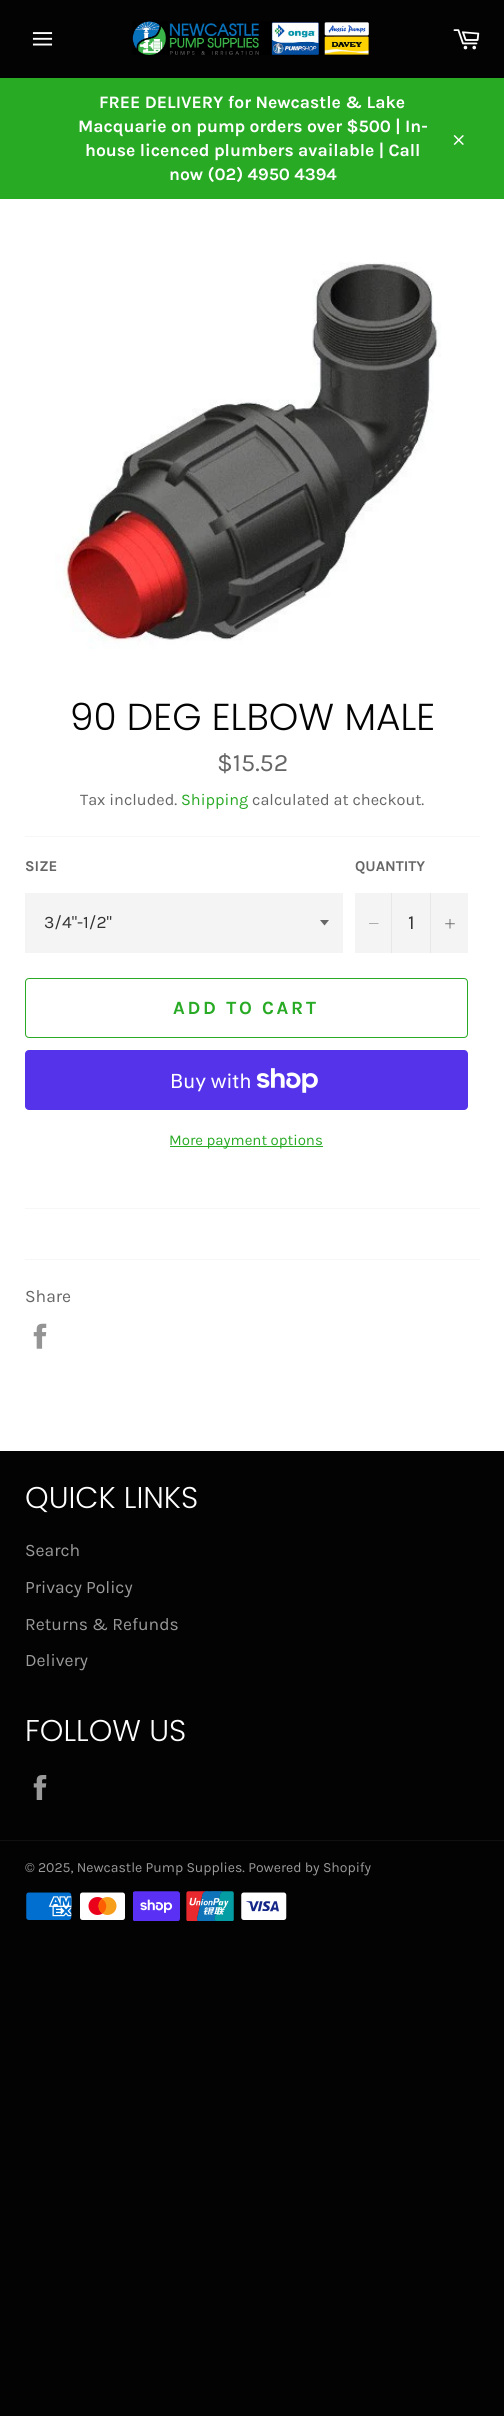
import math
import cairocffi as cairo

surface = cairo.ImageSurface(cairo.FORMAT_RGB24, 504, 2416)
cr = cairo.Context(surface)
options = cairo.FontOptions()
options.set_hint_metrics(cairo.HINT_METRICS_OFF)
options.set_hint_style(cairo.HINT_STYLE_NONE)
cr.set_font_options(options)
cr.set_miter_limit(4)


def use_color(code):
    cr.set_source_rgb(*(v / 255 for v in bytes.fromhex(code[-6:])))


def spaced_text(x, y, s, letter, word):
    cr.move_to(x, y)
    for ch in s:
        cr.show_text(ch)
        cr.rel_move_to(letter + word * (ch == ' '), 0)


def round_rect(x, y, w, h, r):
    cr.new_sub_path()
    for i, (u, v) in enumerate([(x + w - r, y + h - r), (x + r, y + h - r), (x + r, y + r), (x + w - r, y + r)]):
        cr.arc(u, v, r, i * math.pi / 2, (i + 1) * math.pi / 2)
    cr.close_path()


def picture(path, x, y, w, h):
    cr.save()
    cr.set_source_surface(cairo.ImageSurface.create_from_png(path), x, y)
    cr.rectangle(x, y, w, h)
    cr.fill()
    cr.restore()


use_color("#030303")
cr.paint()
picture("img1.png", 32, 32, 21, 14)
picture("img2.png", 132, 21, 237, 34)
picture("img3.png", 453, 29, 27, 21)
use_color("#28aa25")
cr.rectangle(0, 78, 504, 121)
cr.fill()
cr.select_font_face("Karla", cairo.FONT_SLANT_NORMAL, cairo.FONT_WEIGHT_BOLD)
cr.set_font_size(17.5)
use_color("#ffffff")
cr.move_to(99, 108)
cr.show_text("FREE DELIVERY for Newcastle & Lake")
cr.move_to(78, 132)
cr.show_text("Macquarie on pump orders over $500 | In-")
cr.move_to(85, 156)
cr.show_text("house licenced plumbers available | Call")
cr.move_to(169, 180)
cr.show_text("now (02) 4950 4394")
picture("img4.png", 453, 135, 11, 10)
cr.rectangle(0, 199, 504, 1252)
cr.fill()
picture("img5.png", 55, 262, 386, 387)
cr.select_font_face("Poppins Light")
cr.set_font_size(37.5)
use_color("#030303")
cr.move_to(70, 730)
cr.show_text("90 DEG ELBOW MALE")
cr.select_font_face("Karla")
cr.set_font_size(25)
use_color("#666666")
cr.move_to(217, 771)
cr.show_text("$15.52")
cr.set_font_size(16.25)
cr.move_to(80, 805)
cr.show_text("Tax included.")
use_color("#28aa25")
cr.move_to(181, 805)
cr.show_text("Shipping")
use_color("#666666")
cr.move_to(252, 805)
cr.show_text("calculated at checkout.")
use_color("#f7f7f7")
cr.rectangle(25, 836, 455, 1)
cr.fill()
cr.select_font_face("Karla", cairo.FONT_SLANT_NORMAL, cairo.FONT_WEIGHT_BOLD)
cr.set_font_size(15)
use_color("#666666")
cr.move_to(25, 871)
cr.show_text("SIZE")
use_color("#f4f4f4")
cr.rectangle(25, 893, 318, 60)
cr.fill()
use_color("#666666")
cr.new_path()
cr.move_to(320, 920)
cr.line_to(324.5, 925.5)
cr.line_to(329, 920)
cr.close_path()
cr.fill()
cr.select_font_face("Karla")
cr.set_font_size(17.5)
use_color("#333333")
cr.move_to(44, 928)
cr.show_text("3/4\"-1/2\"")
cr.select_font_face("Karla", cairo.FONT_SLANT_NORMAL, cairo.FONT_WEIGHT_BOLD)
cr.set_font_size(15)
use_color("#666666")
cr.move_to(355, 871)
cr.show_text("QUANTITY")
use_color("#f4f4f4")
cr.rectangle(355, 893, 113, 60)
cr.fill()
use_color("#e7e7e7")
cr.rectangle(391, 893, 1, 60)
cr.fill()
use_color("#666666")
cr.set_fill_rule(cairo.FILL_RULE_EVEN_ODD)
cr.new_path()
cr.move_to(378.5, 923.5)
cr.line_to(378.5, 924)
cr.line_to(369, 924)
cr.line_to(369, 923.5)
cr.close_path()
cr.fill()
cr.select_font_face("Karla")
cr.set_font_size(20)
use_color("#333333")
cr.move_to(408, 929)
cr.show_text("1")
use_color("#e7e7e7")
cr.rectangle(430, 893, 1, 60)
cr.fill()
picture("img6.png", 445, 919, 10, 10)
round_rect(25.5, 978.5, 442, 59, 3.5)
use_color("#28aa25")
cr.set_line_width(1)
cr.stroke()
cr.select_font_face("Karla", cairo.FONT_SLANT_NORMAL, cairo.FONT_WEIGHT_BOLD)
cr.set_font_size(18.75)
spaced_text(173, 1014, "ADD TO CART", 2.75, 0)
use_color("#5433eb")
round_rect(25, 1050, 443, 60, 4)
cr.fill()
cr.select_font_face("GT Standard")
cr.set_font_size(20)
use_color("#ffffff")
cr.move_to(170, 1088)
cr.show_text("Buy with")
picture("img7.png", 256, 1068, 62, 25)
use_color("#28aa25")
cr.rectangle(170, 1146, 153, 1)
cr.fill()
cr.select_font_face("Karla")
cr.set_font_size(15)
cr.move_to(169, 1145)
cr.show_text("More payment options")
use_color("#f7f7f7")
cr.rectangle(25, 1208, 455, 1)
cr.fill()
cr.rectangle(25, 1259, 455, 1)
cr.fill()
cr.set_font_size(17.5)
use_color("#666666")
cr.move_to(25, 1302)
cr.show_text("Share")
picture("img8.png", 33, 1323, 14, 26)
cr.select_font_face("Poppins Light")
cr.set_font_size(30)
use_color("#ffffff")
cr.move_to(25, 1508)
cr.show_text("QUICK LINKS")
cr.select_font_face("Karla")
cr.set_font_size(17.5)
use_color("#9a9a9a")
cr.move_to(25, 1556)
cr.show_text("Search")
cr.move_to(25, 1593)
cr.show_text("Privacy Policy")
cr.move_to(25, 1630)
cr.show_text("Returns & Refunds")
cr.move_to(25, 1666)
cr.show_text("Delivery")
cr.select_font_face("Poppins Light")
cr.set_font_size(30)
use_color("#ffffff")
cr.move_to(25, 1741)
cr.show_text("FOLLOW US")
picture("img9.png", 33, 1775, 14, 25)
use_color("#101010")
cr.rectangle(0, 1840, 504, 1)
cr.fill()
cr.select_font_face("Karla")
cr.set_font_size(14)
use_color("#9a9a9a")
cr.move_to(25, 1872)
cr.show_text("© 2025, Newcastle Pump Supplies. Powered by Shopify")
picture("img10.png", 26, 1892, 46, 28)
picture("img11.png", 80, 1892, 45, 28)
picture("img12.png", 133, 1891, 47, 30)
picture("img13.png", 186, 1891, 48, 30)
picture("img14.png", 241, 1892, 46, 28)
surface.write_to_png("result.png")
